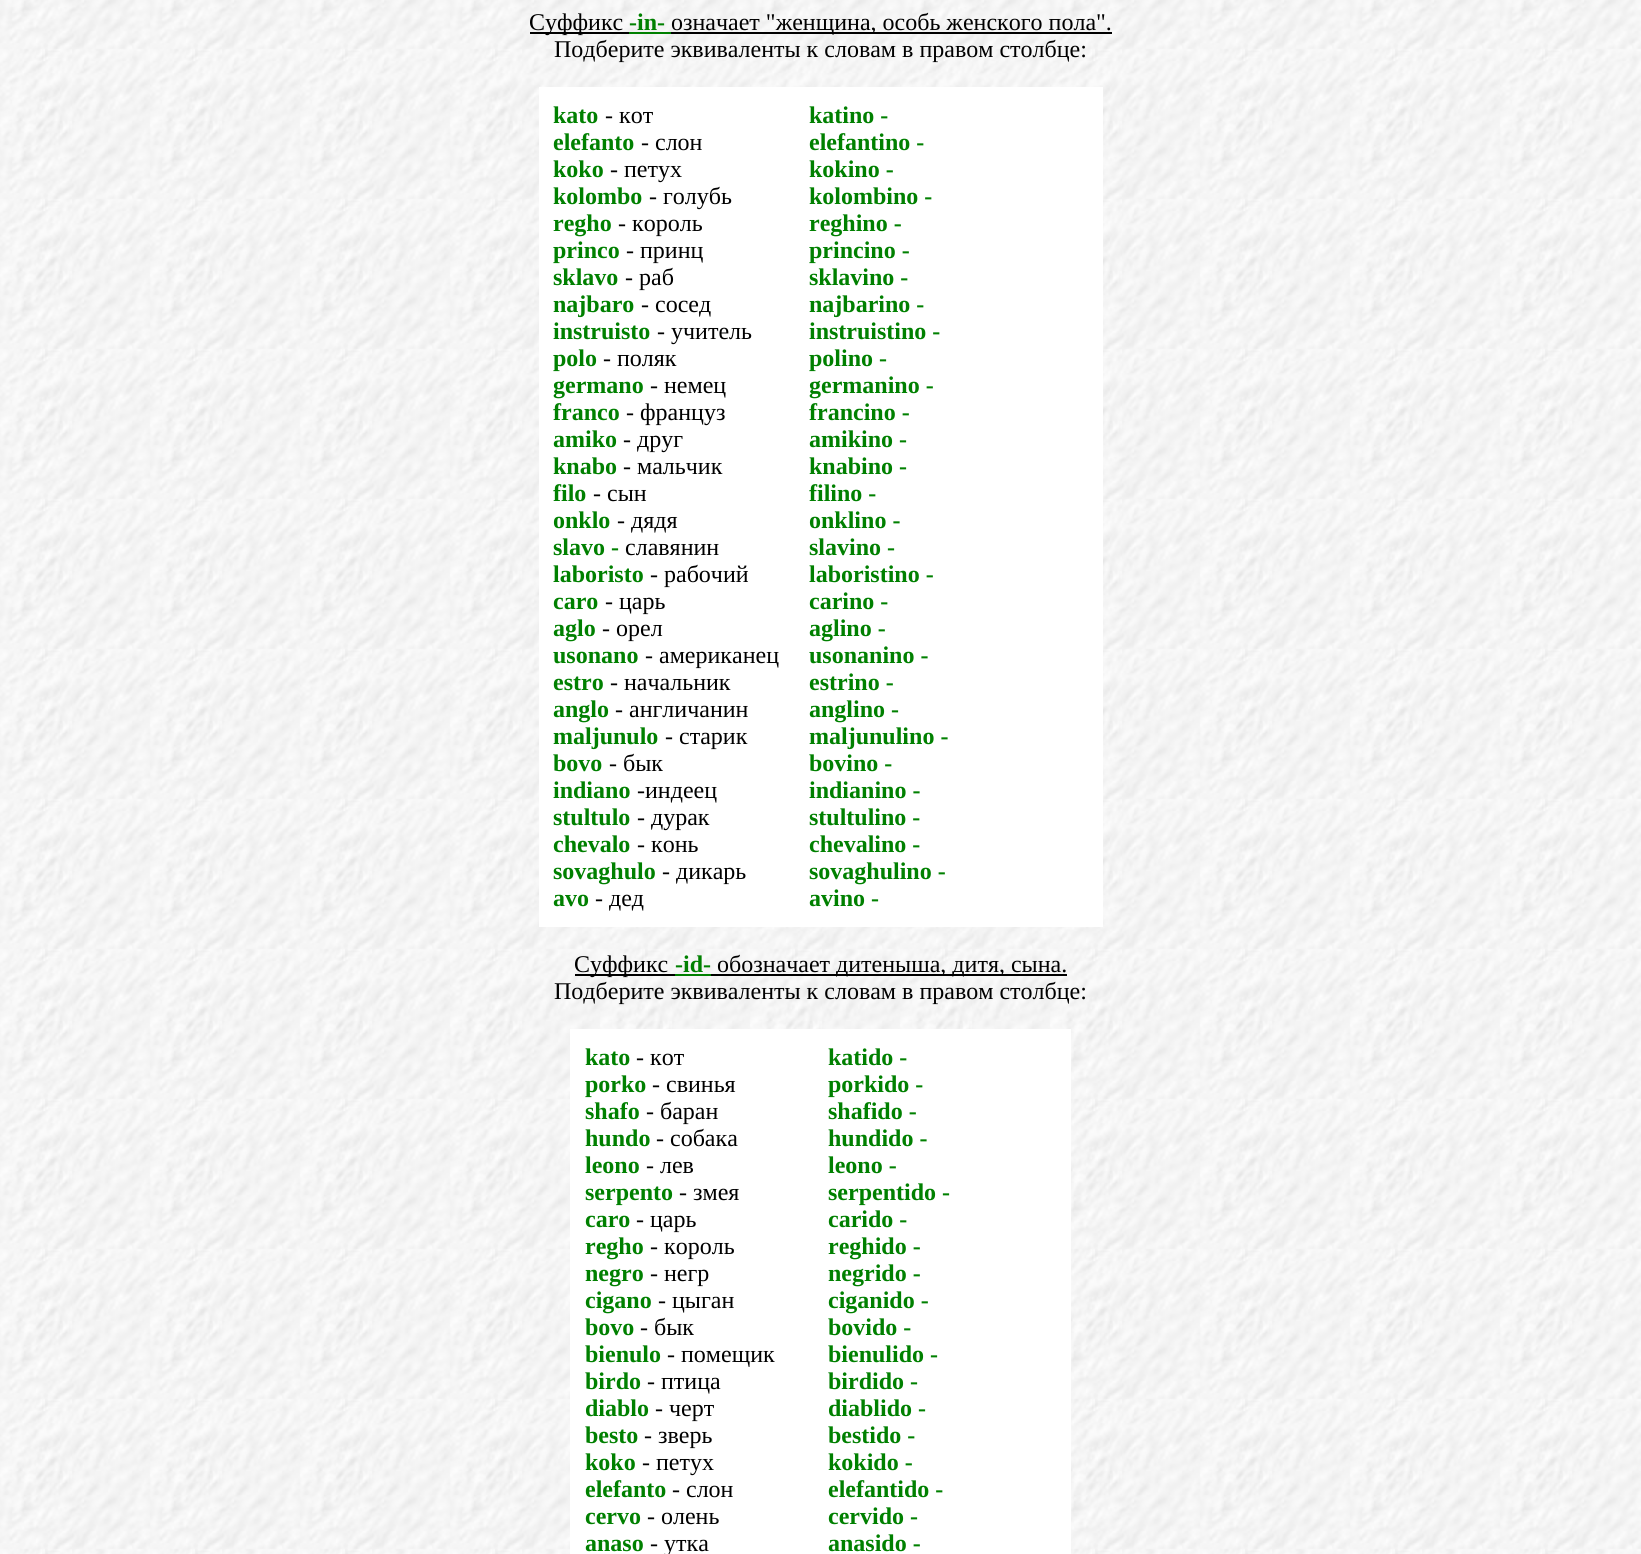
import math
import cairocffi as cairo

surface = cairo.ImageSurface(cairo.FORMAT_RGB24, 1641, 1554)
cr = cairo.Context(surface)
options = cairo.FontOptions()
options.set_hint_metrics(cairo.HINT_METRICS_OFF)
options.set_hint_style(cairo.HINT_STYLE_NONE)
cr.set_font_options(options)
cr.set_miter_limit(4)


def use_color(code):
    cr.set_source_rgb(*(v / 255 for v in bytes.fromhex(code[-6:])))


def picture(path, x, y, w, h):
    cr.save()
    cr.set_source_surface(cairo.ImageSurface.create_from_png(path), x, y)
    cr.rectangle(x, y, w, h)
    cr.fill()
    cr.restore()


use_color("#ffffff")
cr.paint()
picture("img1.png", 0, 0, 1641, 1554)
use_color("#000000")
cr.rectangle(530, 32, 99, 2)
cr.fill()
cr.select_font_face("Liberation Serif")
cr.set_font_size(24)
cr.move_to(529, 30)
cr.show_text("Суффикс")
cr.select_font_face("Liberation Serif", cairo.FONT_SLANT_NORMAL, cairo.FONT_WEIGHT_BOLD)
use_color("#008000")
cr.move_to(629, 30)
cr.show_text("-in-")
cr.rectangle(629, 32, 42, 2)
cr.fill()
use_color("#000000")
cr.rectangle(671, 32, 441, 2)
cr.fill()
cr.select_font_face("Liberation Serif")
cr.move_to(671, 30)
cr.show_text("означает \"женщина, особь женского пола\".")
cr.move_to(554, 57)
cr.show_text("Подберите эквиваленты к словам в правом столбце:")
use_color("#ffffff")
cr.rectangle(539, 87, 564, 840)
cr.fill()
cr.select_font_face("Liberation Serif", cairo.FONT_SLANT_NORMAL, cairo.FONT_WEIGHT_BOLD)
use_color("#008000")
cr.move_to(553, 123)
cr.show_text("kato")
cr.select_font_face("Liberation Serif")
use_color("#000000")
cr.move_to(605, 123)
cr.show_text("- кот")
cr.select_font_face("Liberation Serif", cairo.FONT_SLANT_NORMAL, cairo.FONT_WEIGHT_BOLD)
use_color("#008000")
cr.move_to(553, 150)
cr.show_text("elefanto")
cr.select_font_face("Liberation Serif")
use_color("#000000")
cr.move_to(641, 150)
cr.show_text("- слон")
cr.select_font_face("Liberation Serif", cairo.FONT_SLANT_NORMAL, cairo.FONT_WEIGHT_BOLD)
use_color("#008000")
cr.move_to(553, 177)
cr.show_text("koko")
cr.select_font_face("Liberation Serif")
use_color("#000000")
cr.move_to(610, 177)
cr.show_text("- петух")
cr.select_font_face("Liberation Serif", cairo.FONT_SLANT_NORMAL, cairo.FONT_WEIGHT_BOLD)
use_color("#008000")
cr.move_to(553, 204)
cr.show_text("kolombo")
cr.select_font_face("Liberation Serif")
use_color("#000000")
cr.move_to(649, 204)
cr.show_text("- голубь")
cr.select_font_face("Liberation Serif", cairo.FONT_SLANT_NORMAL, cairo.FONT_WEIGHT_BOLD)
use_color("#008000")
cr.move_to(553, 231)
cr.show_text("regho")
cr.select_font_face("Liberation Serif")
use_color("#000000")
cr.move_to(618, 231)
cr.show_text("- король")
cr.select_font_face("Liberation Serif", cairo.FONT_SLANT_NORMAL, cairo.FONT_WEIGHT_BOLD)
use_color("#008000")
cr.move_to(553, 258)
cr.show_text("princo")
cr.select_font_face("Liberation Serif")
use_color("#000000")
cr.move_to(626, 258)
cr.show_text("- принц")
cr.select_font_face("Liberation Serif", cairo.FONT_SLANT_NORMAL, cairo.FONT_WEIGHT_BOLD)
use_color("#008000")
cr.move_to(553, 285)
cr.show_text("sklavo")
cr.select_font_face("Liberation Serif")
use_color("#000000")
cr.move_to(625, 285)
cr.show_text("- раб")
cr.select_font_face("Liberation Serif", cairo.FONT_SLANT_NORMAL, cairo.FONT_WEIGHT_BOLD)
use_color("#008000")
cr.move_to(553, 312)
cr.show_text("najbaro")
cr.select_font_face("Liberation Serif")
use_color("#000000")
cr.move_to(641, 312)
cr.show_text("- сосед")
cr.select_font_face("Liberation Serif", cairo.FONT_SLANT_NORMAL, cairo.FONT_WEIGHT_BOLD)
use_color("#008000")
cr.move_to(553, 339)
cr.show_text("instruisto")
cr.select_font_face("Liberation Serif")
use_color("#000000")
cr.move_to(657, 339)
cr.show_text("- учитель")
cr.select_font_face("Liberation Serif", cairo.FONT_SLANT_NORMAL, cairo.FONT_WEIGHT_BOLD)
use_color("#008000")
cr.move_to(553, 366)
cr.show_text("polo")
cr.select_font_face("Liberation Serif")
use_color("#000000")
cr.move_to(603, 366)
cr.show_text("- поляк")
cr.select_font_face("Liberation Serif", cairo.FONT_SLANT_NORMAL, cairo.FONT_WEIGHT_BOLD)
use_color("#008000")
cr.move_to(553, 393)
cr.show_text("germano")
cr.select_font_face("Liberation Serif")
use_color("#000000")
cr.move_to(650, 393)
cr.show_text("- немец")
cr.select_font_face("Liberation Serif", cairo.FONT_SLANT_NORMAL, cairo.FONT_WEIGHT_BOLD)
use_color("#008000")
cr.move_to(553, 420)
cr.show_text("franco")
cr.select_font_face("Liberation Serif")
use_color("#000000")
cr.move_to(626, 420)
cr.show_text("- француз")
cr.select_font_face("Liberation Serif", cairo.FONT_SLANT_NORMAL, cairo.FONT_WEIGHT_BOLD)
use_color("#008000")
cr.move_to(553, 447)
cr.show_text("amiko")
cr.select_font_face("Liberation Serif")
use_color("#000000")
cr.move_to(623, 447)
cr.show_text("- друг")
cr.select_font_face("Liberation Serif", cairo.FONT_SLANT_NORMAL, cairo.FONT_WEIGHT_BOLD)
use_color("#008000")
cr.move_to(553, 474)
cr.show_text("knabo")
cr.select_font_face("Liberation Serif")
use_color("#000000")
cr.move_to(623, 474)
cr.show_text("- мальчик")
cr.select_font_face("Liberation Serif", cairo.FONT_SLANT_NORMAL, cairo.FONT_WEIGHT_BOLD)
use_color("#008000")
cr.move_to(553, 501)
cr.show_text("filo")
cr.select_font_face("Liberation Serif")
use_color("#000000")
cr.move_to(593, 501)
cr.show_text("- сын")
cr.select_font_face("Liberation Serif", cairo.FONT_SLANT_NORMAL, cairo.FONT_WEIGHT_BOLD)
use_color("#008000")
cr.move_to(553, 528)
cr.show_text("onklo")
cr.select_font_face("Liberation Serif")
use_color("#000000")
cr.move_to(617, 528)
cr.show_text("- дядя")
cr.select_font_face("Liberation Serif", cairo.FONT_SLANT_NORMAL, cairo.FONT_WEIGHT_BOLD)
use_color("#008000")
cr.move_to(553, 555)
cr.show_text("slavo -")
cr.select_font_face("Liberation Serif")
use_color("#000000")
cr.move_to(625, 555)
cr.show_text("славянин")
cr.select_font_face("Liberation Serif", cairo.FONT_SLANT_NORMAL, cairo.FONT_WEIGHT_BOLD)
use_color("#008000")
cr.move_to(553, 582)
cr.show_text("laboristo")
cr.select_font_face("Liberation Serif")
use_color("#000000")
cr.move_to(650, 582)
cr.show_text("- рабочий")
cr.select_font_face("Liberation Serif", cairo.FONT_SLANT_NORMAL, cairo.FONT_WEIGHT_BOLD)
use_color("#008000")
cr.move_to(553, 609)
cr.show_text("caro")
cr.select_font_face("Liberation Serif")
use_color("#000000")
cr.move_to(605, 609)
cr.show_text("- царь")
cr.select_font_face("Liberation Serif", cairo.FONT_SLANT_NORMAL, cairo.FONT_WEIGHT_BOLD)
use_color("#008000")
cr.move_to(553, 636)
cr.show_text("aglo")
cr.select_font_face("Liberation Serif")
use_color("#000000")
cr.move_to(602, 636)
cr.show_text("- орел")
cr.select_font_face("Liberation Serif", cairo.FONT_SLANT_NORMAL, cairo.FONT_WEIGHT_BOLD)
use_color("#008000")
cr.move_to(553, 663)
cr.show_text("usonano")
cr.select_font_face("Liberation Serif")
use_color("#000000")
cr.move_to(645, 663)
cr.show_text("- американец")
cr.select_font_face("Liberation Serif", cairo.FONT_SLANT_NORMAL, cairo.FONT_WEIGHT_BOLD)
use_color("#008000")
cr.move_to(553, 690)
cr.show_text("estro")
cr.select_font_face("Liberation Serif")
use_color("#000000")
cr.move_to(610, 690)
cr.show_text("- начальник")
cr.select_font_face("Liberation Serif", cairo.FONT_SLANT_NORMAL, cairo.FONT_WEIGHT_BOLD)
use_color("#008000")
cr.move_to(553, 717)
cr.show_text("anglo")
cr.select_font_face("Liberation Serif")
use_color("#000000")
cr.move_to(615, 717)
cr.show_text("- англичанин")
cr.select_font_face("Liberation Serif", cairo.FONT_SLANT_NORMAL, cairo.FONT_WEIGHT_BOLD)
use_color("#008000")
cr.move_to(553, 744)
cr.show_text("maljunulo")
cr.select_font_face("Liberation Serif")
use_color("#000000")
cr.move_to(665, 744)
cr.show_text("- старик")
cr.select_font_face("Liberation Serif", cairo.FONT_SLANT_NORMAL, cairo.FONT_WEIGHT_BOLD)
use_color("#008000")
cr.move_to(553, 771)
cr.show_text("bovo")
cr.select_font_face("Liberation Serif")
use_color("#000000")
cr.move_to(609, 771)
cr.show_text("- бык")
cr.select_font_face("Liberation Serif", cairo.FONT_SLANT_NORMAL, cairo.FONT_WEIGHT_BOLD)
use_color("#008000")
cr.move_to(553, 798)
cr.show_text("indiano")
cr.select_font_face("Liberation Serif")
use_color("#000000")
cr.move_to(637, 798)
cr.show_text("-индеец")
cr.select_font_face("Liberation Serif", cairo.FONT_SLANT_NORMAL, cairo.FONT_WEIGHT_BOLD)
use_color("#008000")
cr.move_to(553, 825)
cr.show_text("stultulo")
cr.select_font_face("Liberation Serif")
use_color("#000000")
cr.move_to(637, 825)
cr.show_text("- дурак")
cr.select_font_face("Liberation Serif", cairo.FONT_SLANT_NORMAL, cairo.FONT_WEIGHT_BOLD)
use_color("#008000")
cr.move_to(553, 852)
cr.show_text("chevalo")
cr.select_font_face("Liberation Serif")
use_color("#000000")
cr.move_to(637, 852)
cr.show_text("- конь")
cr.select_font_face("Liberation Serif", cairo.FONT_SLANT_NORMAL, cairo.FONT_WEIGHT_BOLD)
use_color("#008000")
cr.move_to(553, 879)
cr.show_text("sovaghulo")
cr.select_font_face("Liberation Serif")
use_color("#000000")
cr.move_to(662, 879)
cr.show_text("- дикарь")
cr.select_font_face("Liberation Serif", cairo.FONT_SLANT_NORMAL, cairo.FONT_WEIGHT_BOLD)
use_color("#008000")
cr.move_to(553, 906)
cr.show_text("avo")
cr.select_font_face("Liberation Serif")
use_color("#000000")
cr.move_to(595, 906)
cr.show_text("- дед")
cr.select_font_face("Liberation Serif", cairo.FONT_SLANT_NORMAL, cairo.FONT_WEIGHT_BOLD)
use_color("#008000")
cr.move_to(809, 123)
cr.show_text("katino -")
cr.move_to(809, 150)
cr.show_text("elefantino -")
cr.move_to(809, 177)
cr.show_text("kokino -")
cr.move_to(809, 204)
cr.show_text("kolombino -")
cr.move_to(809, 231)
cr.show_text("reghino -")
cr.move_to(809, 258)
cr.show_text("princino -")
cr.move_to(809, 285)
cr.show_text("sklavino -")
cr.move_to(809, 312)
cr.show_text("najbarino -")
cr.move_to(809, 339)
cr.show_text("instruistino -")
cr.move_to(809, 366)
cr.show_text("polino -")
cr.move_to(809, 393)
cr.show_text("germanino -")
cr.move_to(809, 420)
cr.show_text("francino -")
cr.move_to(809, 447)
cr.show_text("amikino -")
cr.move_to(809, 474)
cr.show_text("knabino -")
cr.move_to(809, 501)
cr.show_text("filino -")
cr.move_to(809, 528)
cr.show_text("onklino -")
cr.move_to(809, 555)
cr.show_text("slavino -")
cr.move_to(809, 582)
cr.show_text("laboristino -")
cr.move_to(809, 609)
cr.show_text("carino -")
cr.move_to(809, 636)
cr.show_text("aglino -")
cr.move_to(809, 663)
cr.show_text("usonanino -")
cr.move_to(809, 690)
cr.show_text("estrino -")
cr.move_to(809, 717)
cr.show_text("anglino -")
cr.move_to(809, 744)
cr.show_text("maljunulino -")
cr.move_to(809, 771)
cr.show_text("bovino -")
cr.move_to(809, 798)
cr.show_text("indianino -")
cr.move_to(809, 825)
cr.show_text("stultulino -")
cr.move_to(809, 852)
cr.show_text("chevalino -")
cr.move_to(809, 879)
cr.show_text("sovaghulino -")
cr.move_to(809, 906)
cr.show_text("avino -")
use_color("#000000")
cr.rectangle(575, 974, 100, 2)
cr.fill()
cr.select_font_face("Liberation Serif")
cr.move_to(574, 972)
cr.show_text("Суффикс")
cr.select_font_face("Liberation Serif", cairo.FONT_SLANT_NORMAL, cairo.FONT_WEIGHT_BOLD)
use_color("#008000")
cr.move_to(675, 972)
cr.show_text("-id-")
cr.rectangle(675, 974, 36, 2)
cr.fill()
use_color("#000000")
cr.rectangle(711, 974, 356, 2)
cr.fill()
cr.select_font_face("Liberation Serif")
cr.move_to(717, 972)
cr.show_text("обозначает дитеныша, дитя, сына.")
cr.move_to(554, 999)
cr.show_text("Подберите эквиваленты к словам в правом столбце:")
use_color("#ffffff")
cr.rectangle(570, 1029, 501, 525)
cr.fill()
cr.select_font_face("Liberation Serif", cairo.FONT_SLANT_NORMAL, cairo.FONT_WEIGHT_BOLD)
use_color("#008000")
cr.move_to(585, 1065)
cr.show_text("kato")
cr.select_font_face("Liberation Serif")
use_color("#000000")
cr.move_to(636, 1065)
cr.show_text("- кот")
cr.select_font_face("Liberation Serif", cairo.FONT_SLANT_NORMAL, cairo.FONT_WEIGHT_BOLD)
use_color("#008000")
cr.move_to(585, 1092)
cr.show_text("porko")
cr.select_font_face("Liberation Serif")
use_color("#000000")
cr.move_to(652, 1092)
cr.show_text("- свинья")
cr.select_font_face("Liberation Serif", cairo.FONT_SLANT_NORMAL, cairo.FONT_WEIGHT_BOLD)
use_color("#008000")
cr.move_to(585, 1119)
cr.show_text("shafo")
cr.select_font_face("Liberation Serif")
use_color("#000000")
cr.move_to(646, 1119)
cr.show_text("- баран")
cr.select_font_face("Liberation Serif", cairo.FONT_SLANT_NORMAL, cairo.FONT_WEIGHT_BOLD)
use_color("#008000")
cr.move_to(585, 1146)
cr.show_text("hundo")
cr.select_font_face("Liberation Serif")
use_color("#000000")
cr.move_to(656, 1146)
cr.show_text("- собака")
cr.select_font_face("Liberation Serif", cairo.FONT_SLANT_NORMAL, cairo.FONT_WEIGHT_BOLD)
use_color("#008000")
cr.move_to(585, 1173)
cr.show_text("leono")
cr.select_font_face("Liberation Serif")
use_color("#000000")
cr.move_to(646, 1173)
cr.show_text("- лев")
cr.select_font_face("Liberation Serif", cairo.FONT_SLANT_NORMAL, cairo.FONT_WEIGHT_BOLD)
use_color("#008000")
cr.move_to(585, 1200)
cr.show_text("serpento")
cr.select_font_face("Liberation Serif")
use_color("#000000")
cr.move_to(679, 1200)
cr.show_text("- змея")
cr.select_font_face("Liberation Serif", cairo.FONT_SLANT_NORMAL, cairo.FONT_WEIGHT_BOLD)
use_color("#008000")
cr.move_to(585, 1227)
cr.show_text("caro")
cr.select_font_face("Liberation Serif")
use_color("#000000")
cr.move_to(636, 1227)
cr.show_text("- царь")
cr.select_font_face("Liberation Serif", cairo.FONT_SLANT_NORMAL, cairo.FONT_WEIGHT_BOLD)
use_color("#008000")
cr.move_to(585, 1254)
cr.show_text("regho")
cr.select_font_face("Liberation Serif")
use_color("#000000")
cr.move_to(650, 1254)
cr.show_text("- король")
cr.select_font_face("Liberation Serif", cairo.FONT_SLANT_NORMAL, cairo.FONT_WEIGHT_BOLD)
use_color("#008000")
cr.move_to(585, 1281)
cr.show_text("negro")
cr.select_font_face("Liberation Serif")
use_color("#000000")
cr.move_to(650, 1281)
cr.show_text("- негр")
cr.select_font_face("Liberation Serif", cairo.FONT_SLANT_NORMAL, cairo.FONT_WEIGHT_BOLD)
use_color("#008000")
cr.move_to(585, 1308)
cr.show_text("cigano")
cr.select_font_face("Liberation Serif")
use_color("#000000")
cr.move_to(658, 1308)
cr.show_text("- цыган")
cr.select_font_face("Liberation Serif", cairo.FONT_SLANT_NORMAL, cairo.FONT_WEIGHT_BOLD)
use_color("#008000")
cr.move_to(585, 1335)
cr.show_text("bovo")
cr.select_font_face("Liberation Serif")
use_color("#000000")
cr.move_to(640, 1335)
cr.show_text("- бык")
cr.select_font_face("Liberation Serif", cairo.FONT_SLANT_NORMAL, cairo.FONT_WEIGHT_BOLD)
use_color("#008000")
cr.move_to(585, 1362)
cr.show_text("bienulo")
cr.select_font_face("Liberation Serif")
use_color("#000000")
cr.move_to(667, 1362)
cr.show_text("- помещик")
cr.select_font_face("Liberation Serif", cairo.FONT_SLANT_NORMAL, cairo.FONT_WEIGHT_BOLD)
use_color("#008000")
cr.move_to(585, 1389)
cr.show_text("birdo")
cr.select_font_face("Liberation Serif")
use_color("#000000")
cr.move_to(647, 1389)
cr.show_text("- птица")
cr.select_font_face("Liberation Serif", cairo.FONT_SLANT_NORMAL, cairo.FONT_WEIGHT_BOLD)
use_color("#008000")
cr.move_to(585, 1416)
cr.show_text("diablo")
cr.select_font_face("Liberation Serif")
use_color("#000000")
cr.move_to(655, 1416)
cr.show_text("- черт")
cr.select_font_face("Liberation Serif", cairo.FONT_SLANT_NORMAL, cairo.FONT_WEIGHT_BOLD)
use_color("#008000")
cr.move_to(585, 1443)
cr.show_text("besto")
cr.select_font_face("Liberation Serif")
use_color("#000000")
cr.move_to(644, 1443)
cr.show_text("- зверь")
cr.select_font_face("Liberation Serif", cairo.FONT_SLANT_NORMAL, cairo.FONT_WEIGHT_BOLD)
use_color("#008000")
cr.move_to(585, 1470)
cr.show_text("koko")
cr.select_font_face("Liberation Serif")
use_color("#000000")
cr.move_to(642, 1470)
cr.show_text("- петух")
cr.select_font_face("Liberation Serif", cairo.FONT_SLANT_NORMAL, cairo.FONT_WEIGHT_BOLD)
use_color("#008000")
cr.move_to(585, 1497)
cr.show_text("elefanto")
cr.select_font_face("Liberation Serif")
use_color("#000000")
cr.move_to(672, 1497)
cr.show_text("- слон")
cr.select_font_face("Liberation Serif", cairo.FONT_SLANT_NORMAL, cairo.FONT_WEIGHT_BOLD)
use_color("#008000")
cr.move_to(585, 1524)
cr.show_text("cervo")
cr.select_font_face("Liberation Serif")
use_color("#000000")
cr.move_to(647, 1524)
cr.show_text("- олень")
cr.select_font_face("Liberation Serif", cairo.FONT_SLANT_NORMAL, cairo.FONT_WEIGHT_BOLD)
use_color("#008000")
cr.move_to(585, 1551)
cr.show_text("anaso")
cr.select_font_face("Liberation Serif")
use_color("#000000")
cr.move_to(650, 1551)
cr.show_text("- утка")
cr.select_font_face("Liberation Serif", cairo.FONT_SLANT_NORMAL, cairo.FONT_WEIGHT_BOLD)
use_color("#008000")
cr.move_to(828, 1065)
cr.show_text("katido -")
cr.move_to(828, 1092)
cr.show_text("porkido -")
cr.move_to(828, 1119)
cr.show_text("shafido -")
cr.move_to(828, 1146)
cr.show_text("hundido -")
cr.move_to(828, 1173)
cr.show_text("leono -")
cr.move_to(828, 1200)
cr.show_text("serpentido -")
cr.move_to(828, 1227)
cr.show_text("carido -")
cr.move_to(828, 1254)
cr.show_text("reghido -")
cr.move_to(828, 1281)
cr.show_text("negrido -")
cr.move_to(828, 1308)
cr.show_text("ciganido -")
cr.move_to(828, 1335)
cr.show_text("bovido -")
cr.move_to(828, 1362)
cr.show_text("bienulido -")
cr.move_to(828, 1389)
cr.show_text("birdido -")
cr.move_to(828, 1416)
cr.show_text("diablido -")
cr.move_to(828, 1443)
cr.show_text("bestido -")
cr.move_to(828, 1470)
cr.show_text("kokido -")
cr.move_to(828, 1497)
cr.show_text("elefantido -")
cr.move_to(828, 1524)
cr.show_text("cervido -")
cr.move_to(828, 1551)
cr.show_text("anasido -")
surface.write_to_png("result.png")
